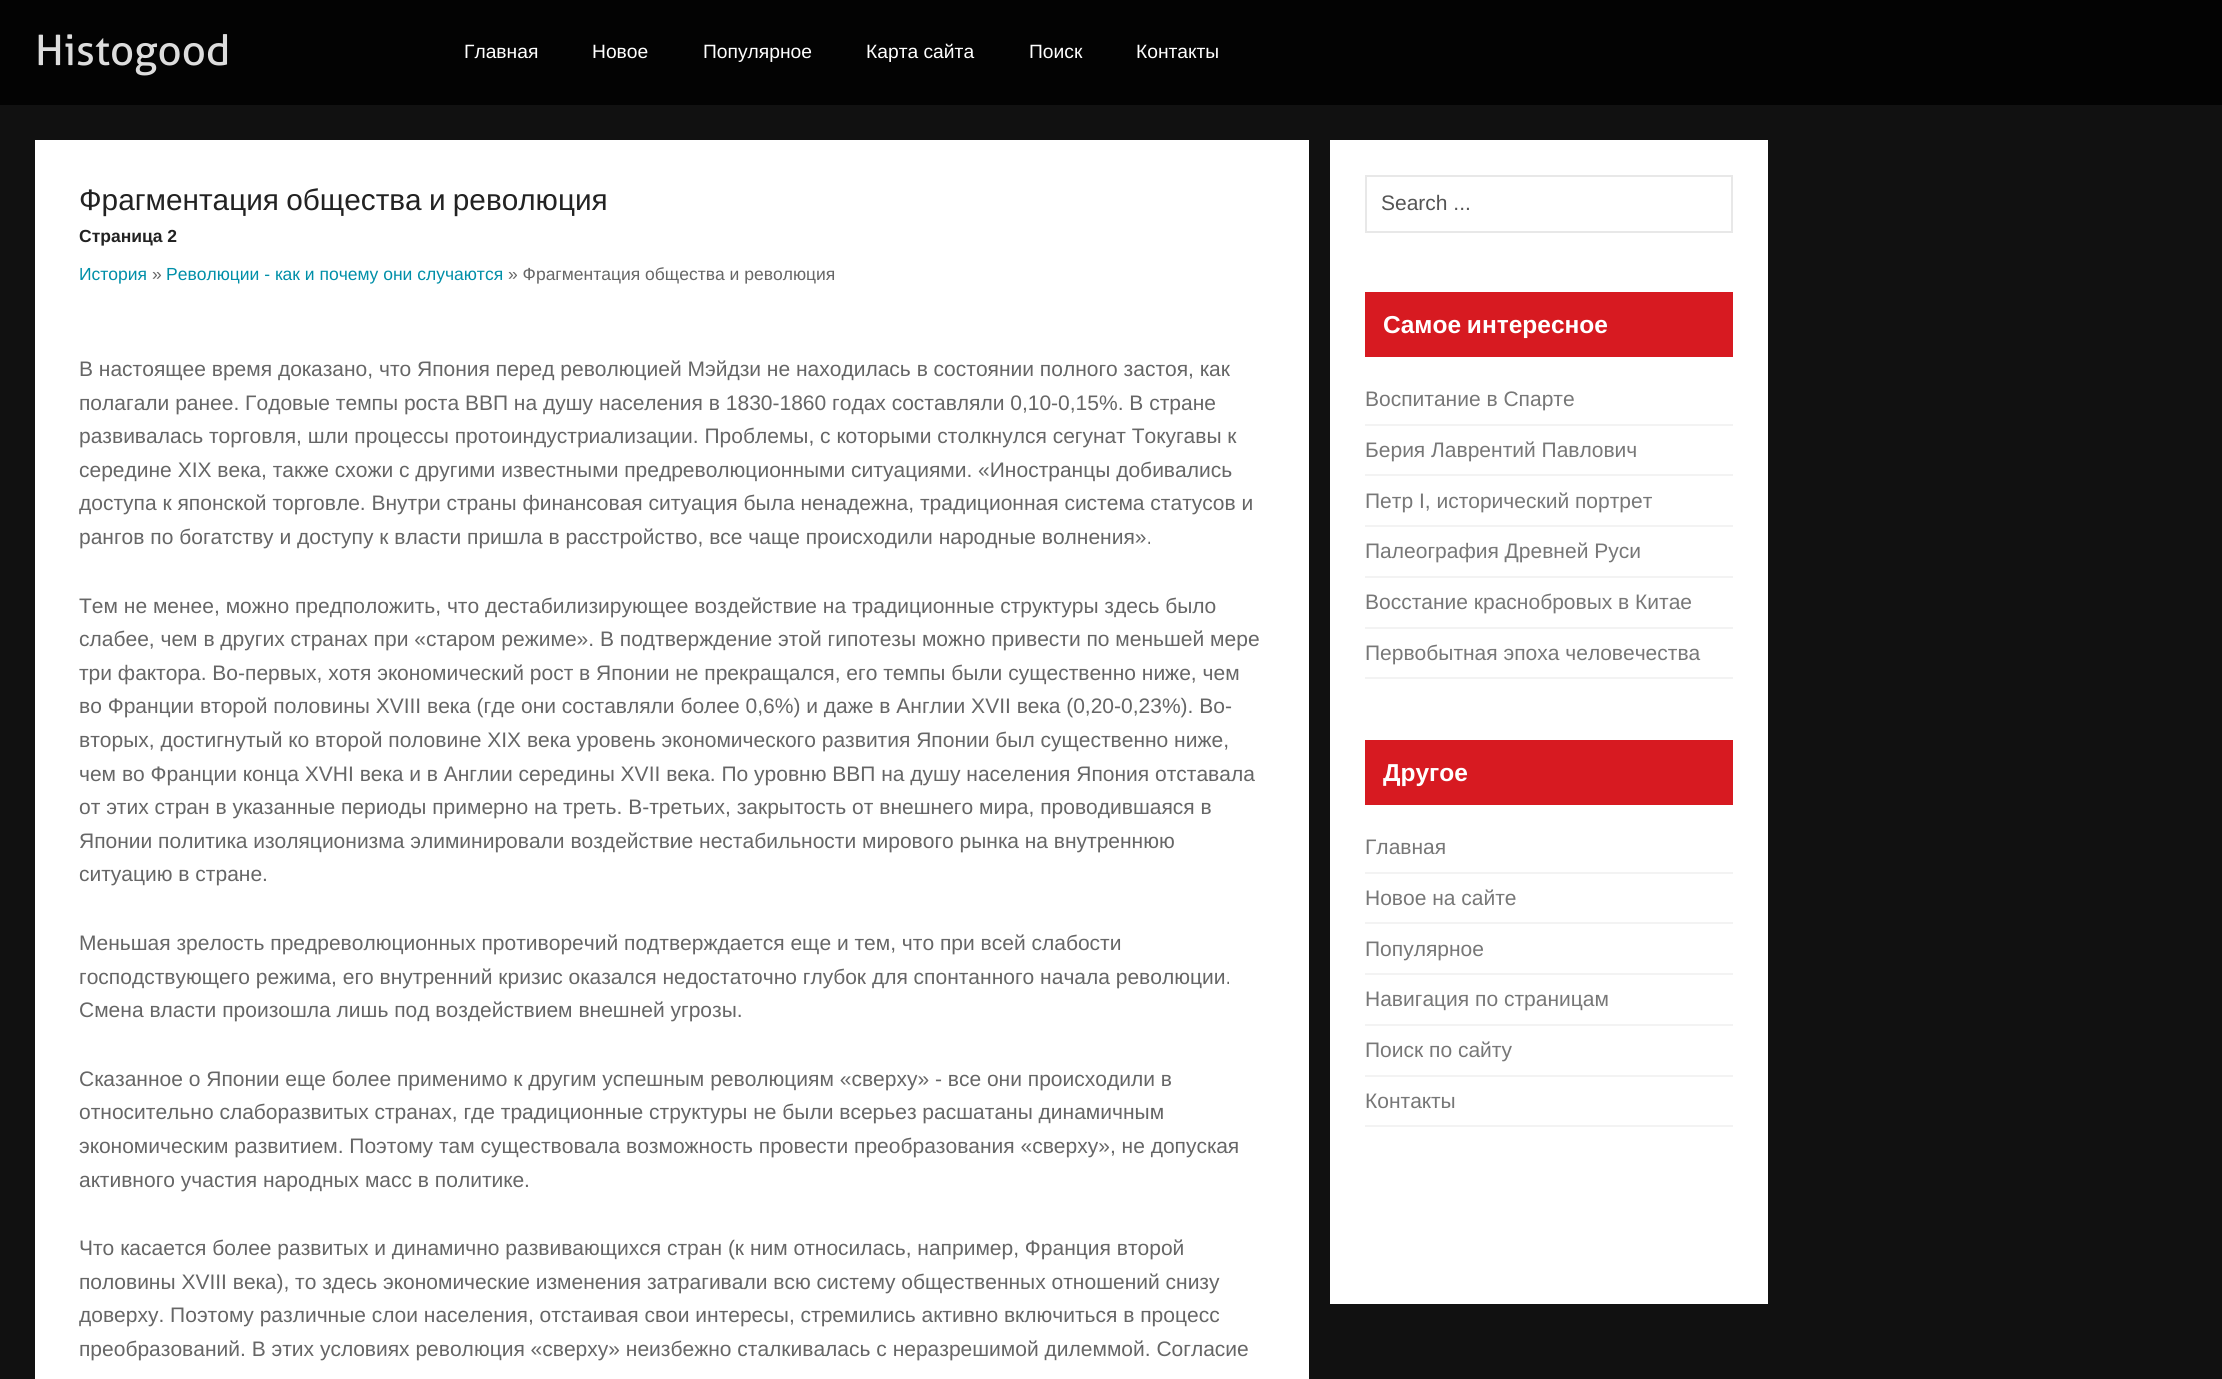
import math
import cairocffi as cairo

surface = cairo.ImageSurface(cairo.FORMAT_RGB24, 2222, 1379)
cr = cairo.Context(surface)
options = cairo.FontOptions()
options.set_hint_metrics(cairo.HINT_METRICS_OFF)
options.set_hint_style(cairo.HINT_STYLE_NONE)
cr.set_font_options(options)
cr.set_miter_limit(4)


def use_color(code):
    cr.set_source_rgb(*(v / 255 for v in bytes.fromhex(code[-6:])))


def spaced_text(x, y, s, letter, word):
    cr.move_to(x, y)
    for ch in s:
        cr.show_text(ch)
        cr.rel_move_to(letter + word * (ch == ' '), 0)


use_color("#111111")
cr.paint()
use_color("#030303")
cr.rectangle(0, 0, 2222, 105)
cr.fill()
cr.select_font_face("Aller")
cr.set_font_size(42)
use_color("#dddddd")
cr.move_to(35, 65)
cr.show_text("Histogood")
cr.select_font_face("Liberation Sans")
cr.set_font_size(19.25)
use_color("#ffffff")
cr.move_to(464, 58)
cr.show_text("Главная")
cr.move_to(592, 58)
cr.show_text("Новое")
cr.move_to(703, 58)
cr.show_text("Популярное")
cr.move_to(866, 58)
cr.show_text("Карта сайта")
cr.move_to(1029, 58)
cr.show_text("Поиск")
cr.move_to(1136, 58)
cr.show_text("Контакты")
cr.rectangle(35, 140, 1274, 1239)
cr.fill()
cr.set_font_size(29.75)
use_color("#222222")
spaced_text(79, 210, "Фрагментация общества и революция", 0, -1)
cr.select_font_face("Liberation Sans", cairo.FONT_SLANT_NORMAL, cairo.FONT_WEIGHT_BOLD)
cr.set_font_size(17.5)
cr.move_to(79, 242)
cr.show_text("Страница 2")
cr.select_font_face("Liberation Sans")
use_color("#008fa8")
cr.move_to(79, 280)
cr.show_text("История")
use_color("#666666")
cr.move_to(152, 280)
cr.show_text("»")
use_color("#008fa8")
cr.move_to(166, 280)
cr.show_text("Революции - как и почему они случаются")
use_color("#666666")
cr.move_to(508, 280)
cr.show_text("» Фрагментация общества и революция")
cr.set_font_size(21)
cr.move_to(79, 376)
cr.show_text("В настоящее время доказано, что Япония перед революцией Мэйдзи не находилась в состоянии полного застоя, как")
cr.move_to(79, 410)
cr.show_text("полагали ранее. Годовые темпы роста ВВП на душу населения в 1830-1860 годах составляли 0,10-0,15%. В стране")
cr.move_to(79, 443)
cr.show_text("развивалась торговля, шли процессы протоиндустриализации. Проблемы, с которыми столкнулся сегунат Токугавы к")
cr.move_to(79, 477)
cr.show_text("середине XIX века, также схожи с другими известными предреволюционными ситуациями. «Иностранцы добивались")
cr.move_to(79, 510)
cr.show_text("доступа к японской торговле. Внутри страны финансовая ситуация была ненадежна, традиционная система статусов и")
cr.move_to(79, 544)
cr.show_text("рангов по богатству и доступу к власти пришла в расстройство, все чаще происходили народные волнения».")
cr.move_to(79, 613)
cr.show_text("Тем не менее, можно предположить, что дестабилизирующее воздействие на традиционные структуры здесь было")
cr.move_to(79, 646)
cr.show_text("слабее, чем в других странах при «старом режиме». В подтверждение этой гипотезы можно привести по меньшей мере")
cr.move_to(79, 680)
cr.show_text("три фактора. Во-первых, хотя экономический рост в Японии не прекращался, его темпы были существенно ниже, чем")
cr.move_to(79, 713)
cr.show_text("во Франции второй половины XVIII века (где они составляли более 0,6%) и даже в Англии XVII века (0,20-0,23%). Во-")
cr.move_to(79, 747)
cr.show_text("вторых, достигнутый ко второй половине XIX века уровень экономического развития Японии был существенно ниже,")
cr.move_to(79, 781)
cr.show_text("чем во Франции конца XVHI века и в Англии середины XVII века. По уровню ВВП на душу населения Япония отставала")
cr.move_to(79, 814)
cr.show_text("от этих стран в указанные периоды примерно на треть. В-третьих, закрытость от внешнего мира, проводившаяся в")
cr.move_to(79, 848)
cr.show_text("Японии политика изоляционизма элиминировали воздействие нестабильности мирового рынка на внутреннюю")
cr.move_to(79, 881)
cr.show_text("ситуацию в стране.")
cr.move_to(79, 950)
cr.show_text("Меньшая зрелость предреволюционных противоречий подтверждается еще и тем, что при всей слабости")
cr.move_to(79, 984)
cr.show_text("господствующего режима, его внутренний кризис оказался недостаточно глубок для спонтанного начала революции.")
cr.move_to(79, 1017)
cr.show_text("Смена власти произошла лишь под воздействием внешней угрозы.")
cr.move_to(79, 1086)
cr.show_text("Сказанное о Японии еще более применимо к другим успешным революциям «сверху» - все они происходили в")
cr.move_to(79, 1119)
cr.show_text("относительно слаборазвитых странах, где традиционные структуры не были всерьез расшатаны динамичным")
cr.move_to(79, 1153)
cr.show_text("экономическим развитием. Поэтому там существовала возможность провести преобразования «сверху», не допуская")
cr.move_to(79, 1187)
cr.show_text("активного участия народных масс в политике.")
cr.move_to(79, 1255)
cr.show_text("Что касается более развитых и динамично развивающихся стран (к ним относилась, например, Франция второй")
cr.move_to(79, 1289)
cr.show_text("половины XVIII века), то здесь экономические изменения затрагивали всю систему общественных отношений снизу")
cr.move_to(79, 1322)
cr.show_text("доверху. Поэтому различные слои населения, отстаивая свои интересы, стремились активно включиться в процесс")
cr.move_to(79, 1356)
cr.show_text("преобразований. В этих условиях революция «сверху» неизбежно сталкивалась с неразрешимой дилеммой. Согласие")
use_color("#ffffff")
cr.rectangle(1330, 140, 438, 1164)
cr.fill()
cr.rectangle(1366, 176, 366, 56)
use_color("#e8e8e8")
cr.stroke()
use_color("#555555")
cr.move_to(1381, 210)
cr.show_text("Search ...")
use_color("#d71a21")
cr.rectangle(1365, 292, 368, 65)
cr.fill()
cr.select_font_face("Liberation Sans", cairo.FONT_SLANT_NORMAL, cairo.FONT_WEIGHT_BOLD)
cr.set_font_size(24.5)
use_color("#ffffff")
spaced_text(1383, 333, "Самое интересное", 0, -1)
use_color("#f3f3f3")
cr.rectangle(1365, 424, 368, 2)
cr.fill()
cr.select_font_face("Liberation Sans")
cr.set_font_size(21)
use_color("#777777")
cr.move_to(1365, 406)
cr.show_text("Воспитание в Спарте")
use_color("#f3f3f3")
cr.rectangle(1365, 474, 368, 2)
cr.fill()
use_color("#777777")
cr.move_to(1365, 457)
cr.show_text("Берия Лаврентий Павлович")
use_color("#f3f3f3")
cr.rectangle(1365, 525, 368, 2)
cr.fill()
use_color("#777777")
cr.move_to(1365, 508)
cr.show_text("Петр I, исторический портрет")
use_color("#f3f3f3")
cr.rectangle(1365, 576, 368, 2)
cr.fill()
use_color("#777777")
cr.move_to(1365, 558)
cr.show_text("Палеография Древней Руси")
use_color("#f3f3f3")
cr.rectangle(1365, 627, 368, 2)
cr.fill()
use_color("#777777")
cr.move_to(1365, 609)
cr.show_text("Восстание краснобровых в Китае")
use_color("#f3f3f3")
cr.rectangle(1365, 677, 368, 2)
cr.fill()
use_color("#777777")
cr.move_to(1365, 660)
cr.show_text("Первобытная эпоха человечества")
use_color("#d71a21")
cr.rectangle(1365, 740, 368, 65)
cr.fill()
cr.select_font_face("Liberation Sans", cairo.FONT_SLANT_NORMAL, cairo.FONT_WEIGHT_BOLD)
cr.set_font_size(24.5)
use_color("#ffffff")
cr.move_to(1383, 781)
cr.show_text("Другое")
use_color("#f3f3f3")
cr.rectangle(1365, 872, 368, 2)
cr.fill()
cr.select_font_face("Liberation Sans")
cr.set_font_size(21)
use_color("#777777")
cr.move_to(1365, 854)
cr.show_text("Главная")
use_color("#f3f3f3")
cr.rectangle(1365, 922, 368, 2)
cr.fill()
use_color("#777777")
cr.move_to(1365, 905)
cr.show_text("Новое на сайте")
use_color("#f3f3f3")
cr.rectangle(1365, 973, 368, 2)
cr.fill()
use_color("#777777")
cr.move_to(1365, 956)
cr.show_text("Популярное")
use_color("#f3f3f3")
cr.rectangle(1365, 1024, 368, 2)
cr.fill()
use_color("#777777")
cr.move_to(1365, 1006)
cr.show_text("Навигация по страницам")
use_color("#f3f3f3")
cr.rectangle(1365, 1075, 368, 2)
cr.fill()
use_color("#777777")
cr.move_to(1365, 1057)
cr.show_text("Поиск по сайту")
use_color("#f3f3f3")
cr.rectangle(1365, 1125, 368, 2)
cr.fill()
use_color("#777777")
cr.move_to(1365, 1108)
cr.show_text("Контакты")
surface.write_to_png("result.png")
